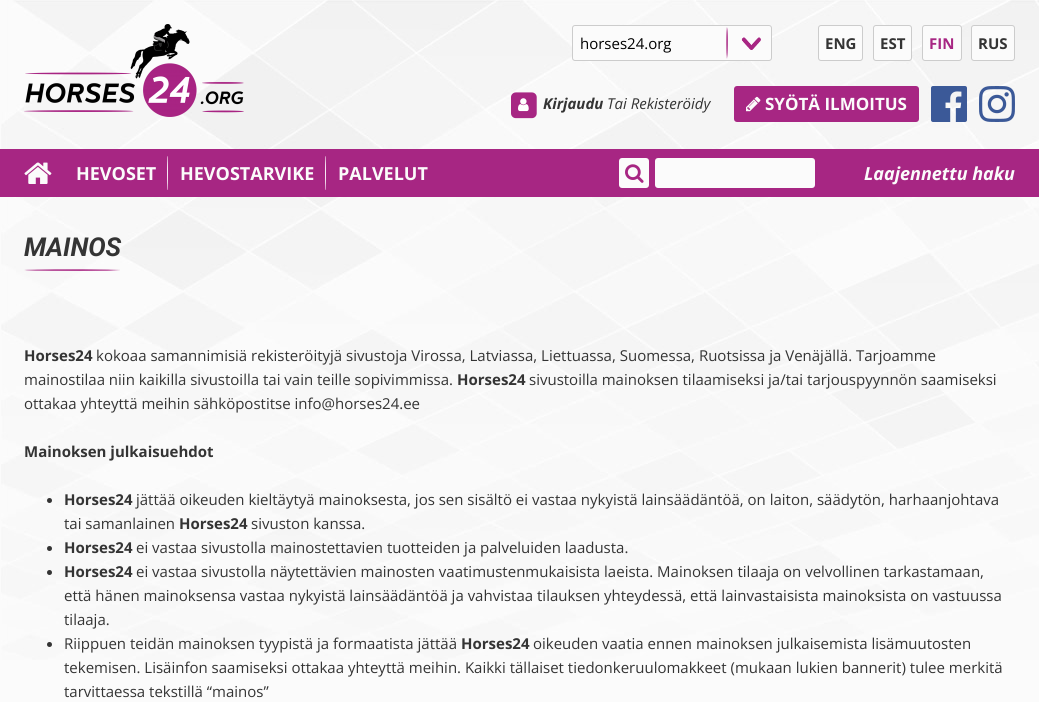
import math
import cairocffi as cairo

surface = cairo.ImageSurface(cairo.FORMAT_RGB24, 1039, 702)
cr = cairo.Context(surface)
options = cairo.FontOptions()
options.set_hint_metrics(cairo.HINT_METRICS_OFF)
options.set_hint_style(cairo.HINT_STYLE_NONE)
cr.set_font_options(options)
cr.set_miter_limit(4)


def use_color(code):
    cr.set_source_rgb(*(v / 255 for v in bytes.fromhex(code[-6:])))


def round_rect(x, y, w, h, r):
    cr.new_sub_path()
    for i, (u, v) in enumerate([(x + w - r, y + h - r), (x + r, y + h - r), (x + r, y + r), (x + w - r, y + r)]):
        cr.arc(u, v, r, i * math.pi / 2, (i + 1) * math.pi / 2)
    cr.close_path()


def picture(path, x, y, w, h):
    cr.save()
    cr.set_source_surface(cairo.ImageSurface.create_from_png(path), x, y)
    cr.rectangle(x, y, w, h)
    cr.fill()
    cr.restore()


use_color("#fbfbfb")
cr.paint()
picture("img1.png", 1, 0, 1038, 660)
picture("img2.png", 24, 24, 220, 93)
use_color("#fbfbfb")
round_rect(572, 25, 200, 36, 3)
cr.fill()
picture("img3.png", 726, 27, 35, 32)
round_rect(572.5, 25.5, 199, 35, 2.5)
use_color("#cccccc")
cr.set_line_width(1)
cr.stroke()
cr.select_font_face("Open Sans")
cr.set_font_size(15)
use_color("#000000")
cr.move_to(580, 49)
cr.show_text("horses24.org")
use_color("#fbfbfb")
round_rect(818.5, 25.5, 44, 35, 2.5)
cr.fill_preserve()
use_color("#cccccc")
cr.stroke()
cr.select_font_face("Open Sans", cairo.FONT_SLANT_NORMAL, cairo.FONT_WEIGHT_BOLD)
use_color("#343434")
cr.move_to(825, 49)
cr.show_text("ENG")
use_color("#fbfbfb")
round_rect(873.5, 25.5, 38, 35, 2.5)
cr.fill_preserve()
use_color("#cccccc")
cr.stroke()
use_color("#343434")
cr.move_to(880, 49)
cr.show_text("EST")
use_color("#fbfbfb")
round_rect(922.5, 25.5, 39, 35, 2.5)
cr.fill_preserve()
use_color("#cccccc")
cr.stroke()
use_color("#a72683")
cr.move_to(929, 49)
cr.show_text("FIN")
use_color("#fbfbfb")
round_rect(971.5, 25.5, 43, 35, 2.5)
cr.fill_preserve()
use_color("#cccccc")
cr.stroke()
use_color("#343434")
cr.move_to(978, 49)
cr.show_text("RUS")
picture("img4.png", 511, 92, 26, 27)
picture("img5.png", 518, 98, 11, 14)
cr.select_font_face("Open Sans", cairo.FONT_SLANT_ITALIC, cairo.FONT_WEIGHT_BOLD)
cr.move_to(543, 109)
cr.show_text("Kirjaudu")
cr.select_font_face("Open Sans", cairo.FONT_SLANT_ITALIC)
cr.move_to(607, 109)
cr.show_text("Tai Rekisteröidy")
use_color("#a72683")
round_rect(734, 86, 185, 36, 3)
cr.fill()
picture("img6.png", 746, 96, 15, 16)
cr.select_font_face("Open Sans", cairo.FONT_SLANT_NORMAL, cairo.FONT_WEIGHT_BOLD)
cr.set_font_size(17)
use_color("#fbfbfb")
cr.move_to(765, 110)
cr.show_text("SYÖTÄ ILMOITUS")
picture("img7.png", 931, 86, 36, 36)
picture("img8.png", 979, 86, 36, 36)
use_color("#a72683")
cr.rectangle(0, 149, 1039, 48)
cr.fill()
picture("img9.png", 24, 162, 28, 22)
picture("img10.png", 167, 156, 1, 34)
cr.set_font_size(18)
use_color("#fbfbfb")
cr.move_to(76, 180)
cr.show_text("HEVOSET")
picture("img10.png", 325, 156, 1, 34)
cr.move_to(180, 180)
cr.show_text("HEVOSTARVIKE")
cr.move_to(338, 180)
cr.show_text("PALVELUT")
round_rect(619, 158, 30, 30, 3)
cr.fill()
picture("img11.png", 625, 164, 19, 19)
round_rect(655, 158, 160, 30, 3)
cr.fill()
cr.select_font_face("Open Sans", cairo.FONT_SLANT_ITALIC, cairo.FONT_WEIGHT_BOLD)
cr.move_to(864, 180)
cr.show_text("Laajennettu haku")
picture("img12.png", 24, 269, 96, 2)
cr.select_font_face("Roboto", cairo.FONT_SLANT_ITALIC, cairo.FONT_WEIGHT_BOLD)
cr.set_font_size(26)
use_color("#343434")
cr.move_to(24, 256)
cr.show_text("MAINOS")
cr.select_font_face("Open Sans", cairo.FONT_SLANT_NORMAL, cairo.FONT_WEIGHT_BOLD)
cr.set_font_size(15)
cr.move_to(24, 361)
cr.show_text("Horses24")
cr.select_font_face("Open Sans")
cr.move_to(96, 361)
cr.show_text("kokoaa samannimisiä rekisteröityjä sivustoja Virossa, Latviassa, Liettuassa, Suomessa, Ruotsissa ja Venäjällä. Tarjoamme")
cr.move_to(24, 385)
cr.show_text("mainostilaa niin kaikilla sivustoilla tai vain teille sopivimmissa.")
cr.select_font_face("Open Sans", cairo.FONT_SLANT_NORMAL, cairo.FONT_WEIGHT_BOLD)
cr.move_to(457, 385)
cr.show_text("Horses24")
cr.select_font_face("Open Sans")
cr.move_to(529, 385)
cr.show_text("sivustoilla mainoksen tilaamiseksi ja/tai tarjouspyynnön saamiseksi")
cr.move_to(24, 409)
cr.show_text("ottakaa yhteyttä meihin sähköpostitse info@horses24.ee")
cr.select_font_face("Open Sans", cairo.FONT_SLANT_NORMAL, cairo.FONT_WEIGHT_BOLD)
cr.move_to(24, 457)
cr.show_text("Mainoksen julkaisuehdot")
cr.new_path()
cr.arc(49.5, 500.5, 2.5, 0, 2 * math.pi)
cr.fill()
cr.move_to(64, 505)
cr.show_text("Horses24")
cr.select_font_face("Open Sans")
cr.move_to(136, 505)
cr.show_text("jättää oikeuden kieltäytyä mainoksesta, jos sen sisältö ei vastaa nykyistä lainsäädäntöä, on laiton, säädytön, harhaanjohtava")
cr.move_to(64, 529)
cr.show_text("tai samanlainen")
cr.select_font_face("Open Sans", cairo.FONT_SLANT_NORMAL, cairo.FONT_WEIGHT_BOLD)
cr.move_to(179, 529)
cr.show_text("Horses24")
cr.select_font_face("Open Sans")
cr.move_to(251, 529)
cr.show_text("sivuston kanssa.")
cr.new_path()
cr.arc(49.5, 548.5, 2.5, 0, 2 * math.pi)
cr.fill()
cr.select_font_face("Open Sans", cairo.FONT_SLANT_NORMAL, cairo.FONT_WEIGHT_BOLD)
cr.move_to(64, 553)
cr.show_text("Horses24")
cr.select_font_face("Open Sans")
cr.move_to(136, 553)
cr.show_text("ei vastaa sivustolla mainostettavien tuotteiden ja palveluiden laadusta.")
cr.new_path()
cr.arc(49.5, 572.5, 2.5, 0, 2 * math.pi)
cr.fill()
cr.select_font_face("Open Sans", cairo.FONT_SLANT_NORMAL, cairo.FONT_WEIGHT_BOLD)
cr.move_to(64, 577)
cr.show_text("Horses24")
cr.select_font_face("Open Sans")
cr.move_to(136, 577)
cr.show_text("ei vastaa sivustolla näytettävien mainosten vaatimustenmukaisista laeista. Mainoksen tilaaja on velvollinen tarkastamaan,")
cr.move_to(64, 601)
cr.show_text("että hänen mainoksensa vastaa nykyistä lainsäädäntöä ja vahvistaa tilauksen yhteydessä, että lainvastaisista mainoksista on vastuussa")
cr.move_to(64, 625)
cr.show_text("tilaaja.")
cr.new_path()
cr.arc(49.5, 644.5, 2.5, 0, 2 * math.pi)
cr.fill()
cr.move_to(64, 649)
cr.show_text("Riippuen teidän mainoksen tyypistä ja formaatista jättää")
cr.select_font_face("Open Sans", cairo.FONT_SLANT_NORMAL, cairo.FONT_WEIGHT_BOLD)
cr.move_to(461, 649)
cr.show_text("Horses24")
cr.select_font_face("Open Sans")
cr.move_to(533, 649)
cr.show_text("oikeuden vaatia ennen mainoksen julkaisemista lisämuutosten")
cr.move_to(64, 673)
cr.show_text("tekemisen. Lisäinfon saamiseksi ottakaa yhteyttä meihin. Kaikki tällaiset tiedonkeruulomakkeet (mukaan lukien bannerit) tulee merkitä")
cr.move_to(64, 697)
cr.show_text("tarvittaessa tekstillä “mainos”")
surface.write_to_png("result.png")
